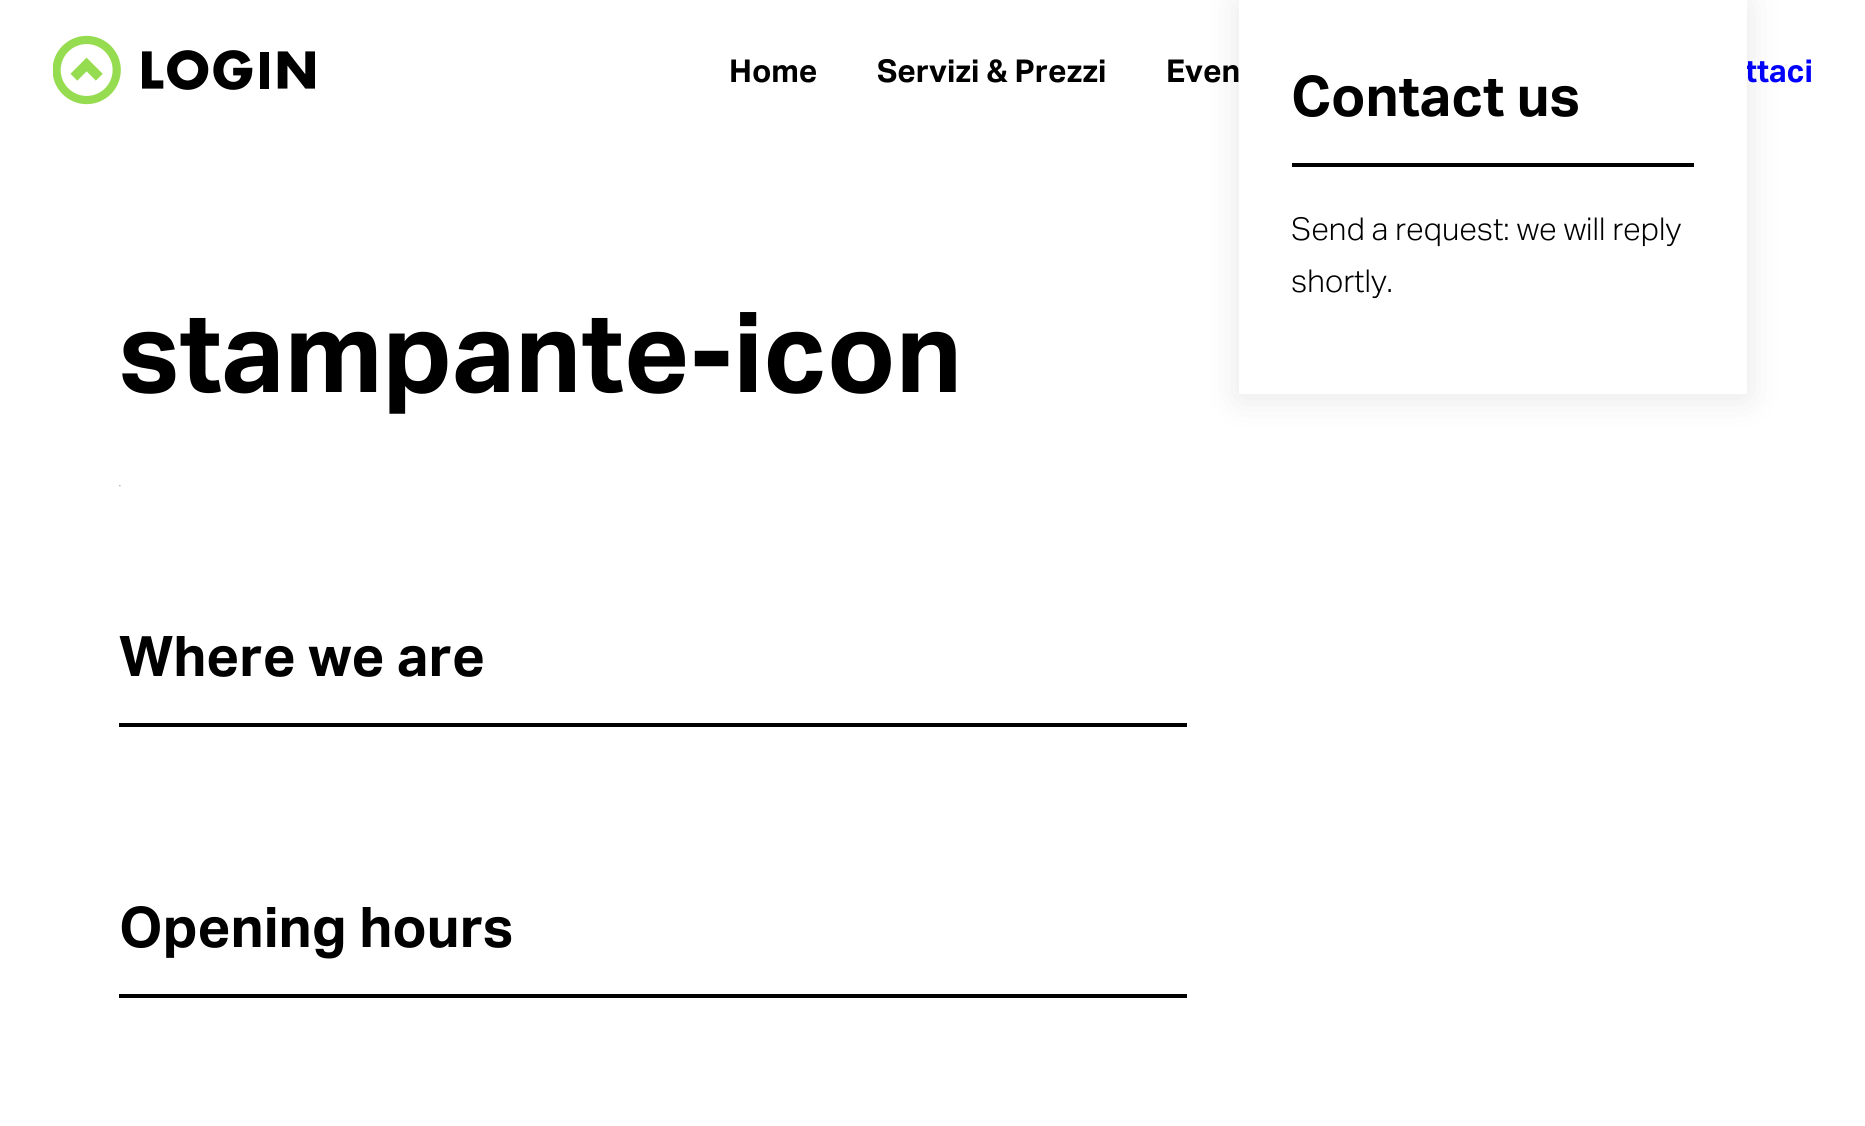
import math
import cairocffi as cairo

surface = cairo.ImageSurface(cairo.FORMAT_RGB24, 1865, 1126)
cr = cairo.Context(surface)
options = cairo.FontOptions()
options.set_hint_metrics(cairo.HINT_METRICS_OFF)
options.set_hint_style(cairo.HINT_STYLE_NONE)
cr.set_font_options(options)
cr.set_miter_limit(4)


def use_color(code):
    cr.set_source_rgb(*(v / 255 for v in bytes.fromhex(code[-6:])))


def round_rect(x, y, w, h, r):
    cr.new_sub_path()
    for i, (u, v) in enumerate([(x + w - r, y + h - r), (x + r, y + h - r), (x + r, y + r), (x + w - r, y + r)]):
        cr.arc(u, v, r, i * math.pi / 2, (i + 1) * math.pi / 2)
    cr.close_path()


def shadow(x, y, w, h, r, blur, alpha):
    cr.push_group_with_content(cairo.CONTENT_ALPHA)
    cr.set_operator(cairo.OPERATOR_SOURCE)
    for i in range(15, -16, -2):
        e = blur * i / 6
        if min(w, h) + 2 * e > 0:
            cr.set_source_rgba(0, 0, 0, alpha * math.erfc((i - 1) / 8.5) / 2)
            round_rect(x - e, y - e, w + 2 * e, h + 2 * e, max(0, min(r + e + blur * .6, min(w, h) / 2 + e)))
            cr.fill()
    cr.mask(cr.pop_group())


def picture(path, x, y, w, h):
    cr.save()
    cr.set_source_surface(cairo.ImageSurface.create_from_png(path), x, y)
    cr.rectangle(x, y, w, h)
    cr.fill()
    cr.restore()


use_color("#ffffff")
cr.paint()
picture("img1.png", 53, 35, 262, 70)
cr.select_font_face("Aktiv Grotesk", cairo.FONT_SLANT_NORMAL, cairo.FONT_WEIGHT_BOLD)
cr.set_font_size(31.5)
use_color("#000000")
cr.move_to(729, 82)
cr.show_text("Home")
cr.move_to(877, 82)
cr.show_text("Servizi & Prezzi")
cr.move_to(1166, 82)
cr.show_text("Even")
use_color("#0000ff")
cr.move_to(1745, 82)
cr.show_text("ttaci")
use_color("#000000")
shadow(1239, 4, 508, 393, 0, 17.5, 0.1)
use_color("#ffffff")
cr.rectangle(1239, 0, 508, 394)
cr.fill()
use_color("#000000")
cr.rectangle(1292, 163, 402, 4)
cr.fill()
cr.set_font_size(56)
cr.move_to(1291, 116)
cr.show_text("Contact us")
cr.select_font_face("Aktiv Grotesk Light")
cr.set_font_size(31.5)
cr.move_to(1291, 240)
cr.show_text("Send a request: we will reply")
cr.move_to(1291, 292)
cr.show_text("shortly.")
cr.select_font_face("Aktiv Grotesk", cairo.FONT_SLANT_NORMAL, cairo.FONT_WEIGHT_BOLD)
cr.set_font_size(112)
cr.move_to(119, 392)
cr.show_text("stampante-icon")
picture("img2.png", 119, 485, 2, 2)
cr.rectangle(119, 723, 1068, 4)
cr.fill()
cr.set_font_size(56)
cr.move_to(119, 676)
cr.show_text("Where we are")
cr.rectangle(119, 994, 1068, 4)
cr.fill()
cr.move_to(119, 947)
cr.show_text("Opening hours")
surface.write_to_png("result.png")
